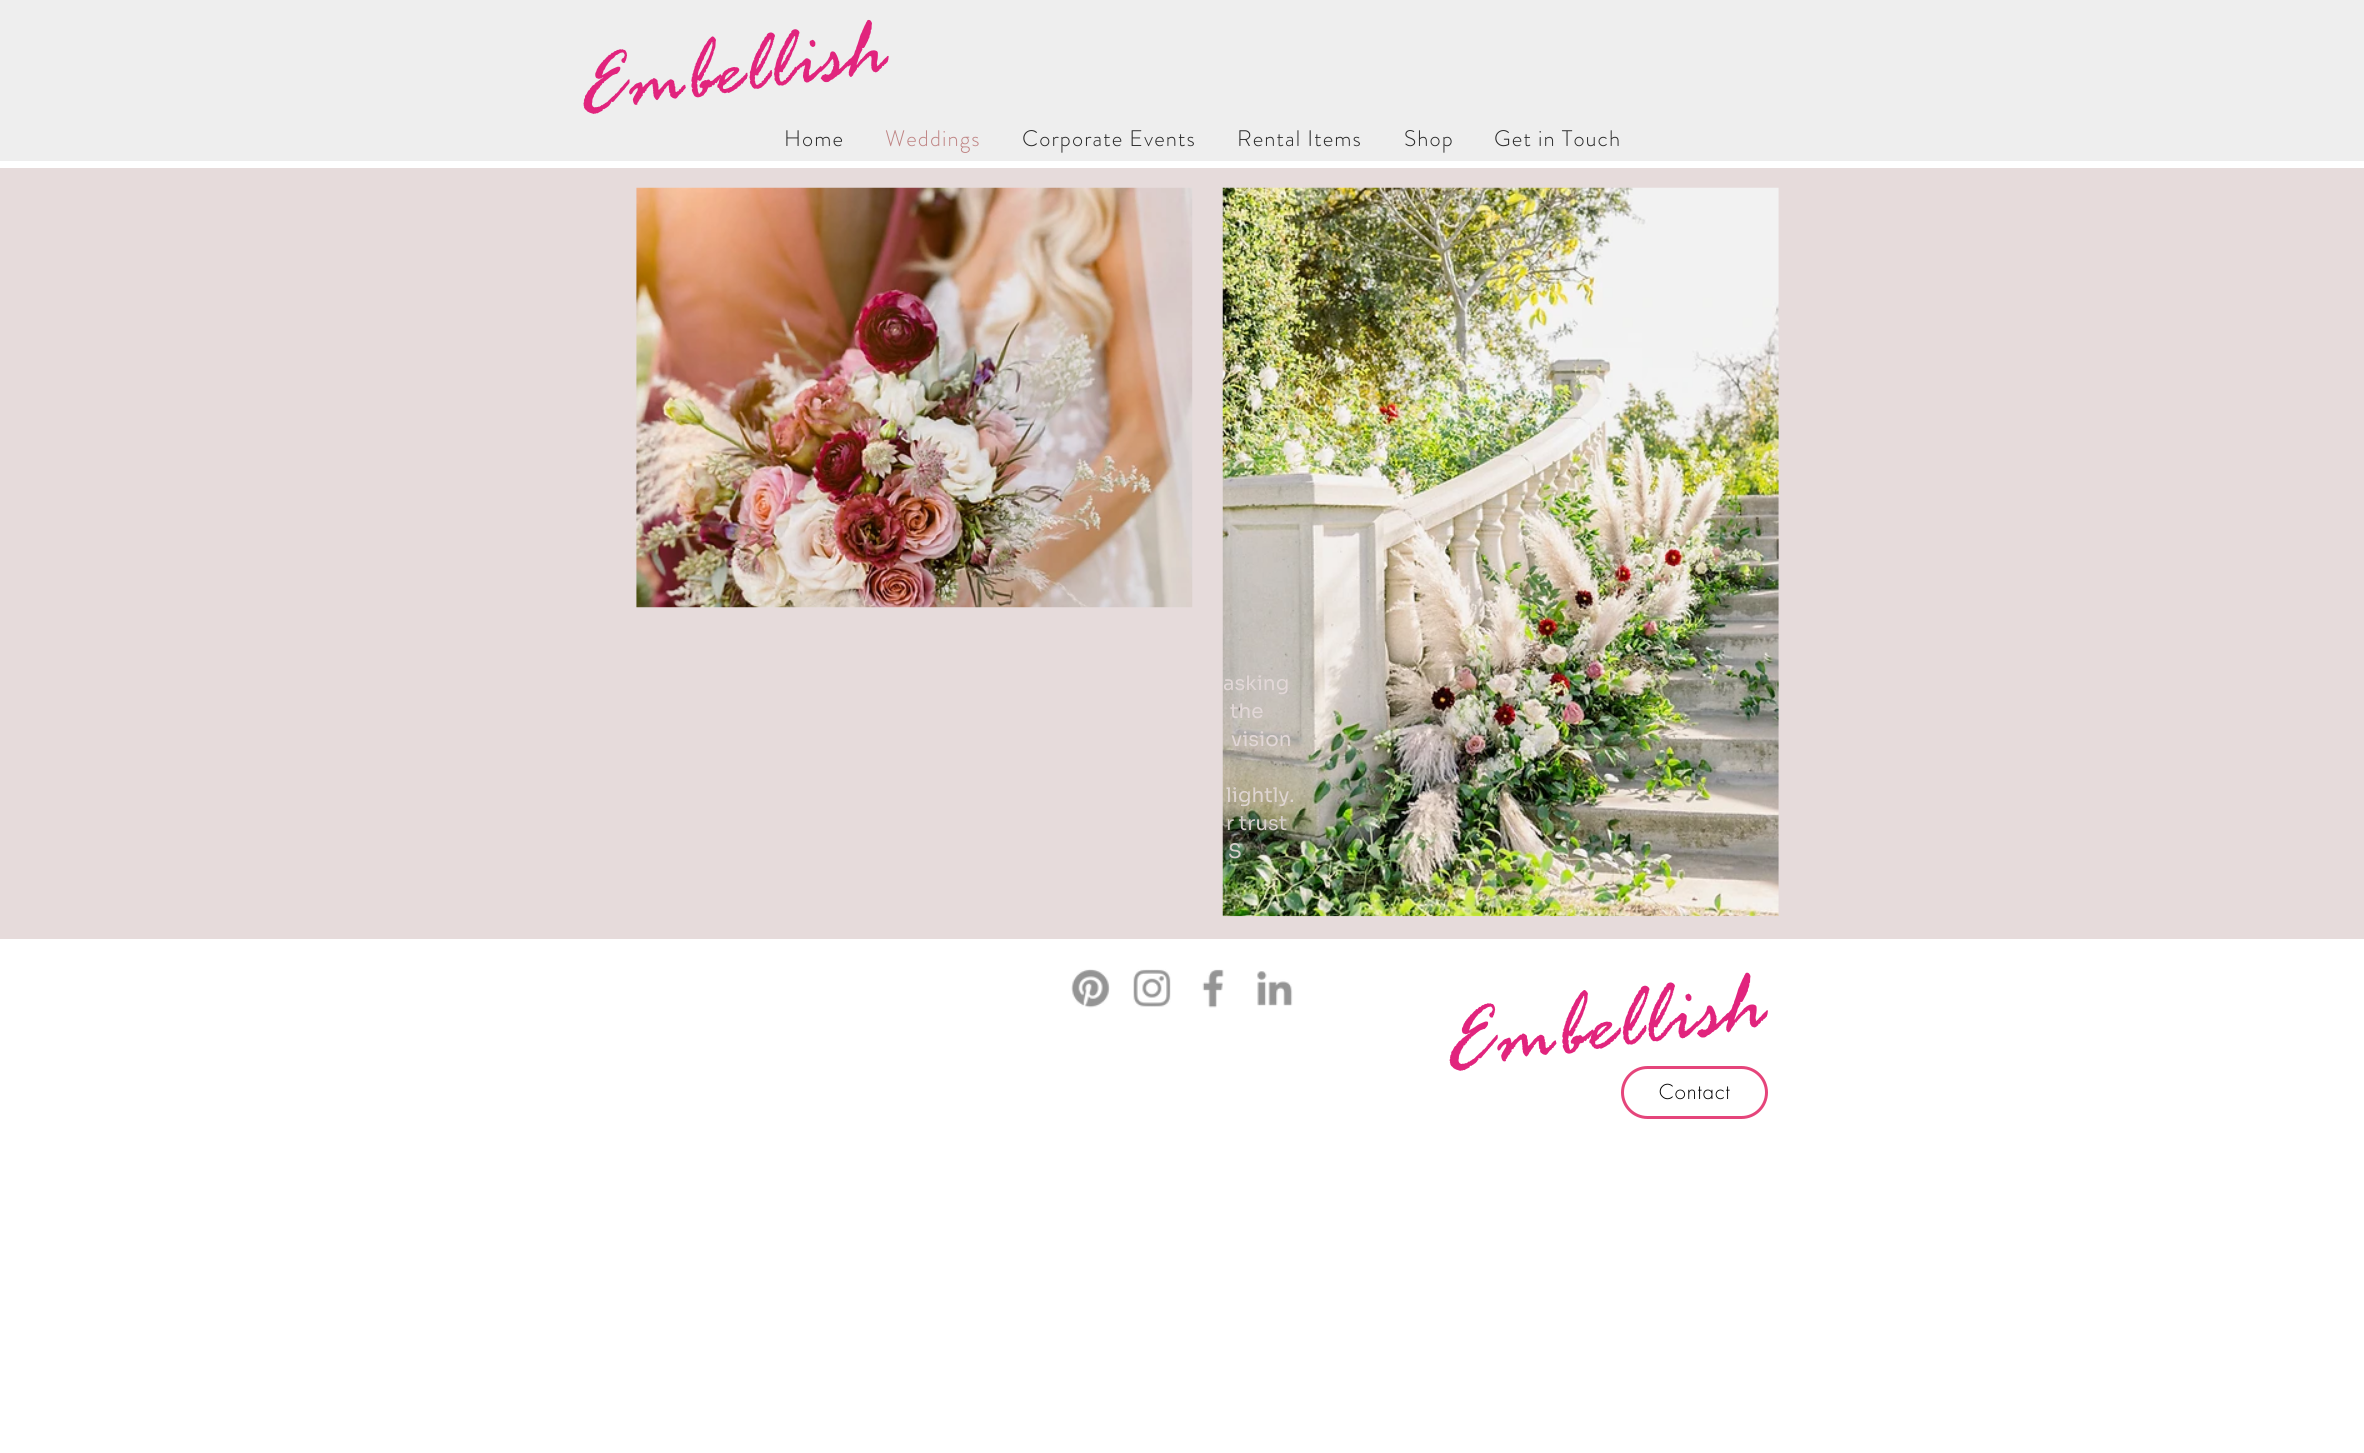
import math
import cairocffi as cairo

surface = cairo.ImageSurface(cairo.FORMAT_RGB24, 2364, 1453)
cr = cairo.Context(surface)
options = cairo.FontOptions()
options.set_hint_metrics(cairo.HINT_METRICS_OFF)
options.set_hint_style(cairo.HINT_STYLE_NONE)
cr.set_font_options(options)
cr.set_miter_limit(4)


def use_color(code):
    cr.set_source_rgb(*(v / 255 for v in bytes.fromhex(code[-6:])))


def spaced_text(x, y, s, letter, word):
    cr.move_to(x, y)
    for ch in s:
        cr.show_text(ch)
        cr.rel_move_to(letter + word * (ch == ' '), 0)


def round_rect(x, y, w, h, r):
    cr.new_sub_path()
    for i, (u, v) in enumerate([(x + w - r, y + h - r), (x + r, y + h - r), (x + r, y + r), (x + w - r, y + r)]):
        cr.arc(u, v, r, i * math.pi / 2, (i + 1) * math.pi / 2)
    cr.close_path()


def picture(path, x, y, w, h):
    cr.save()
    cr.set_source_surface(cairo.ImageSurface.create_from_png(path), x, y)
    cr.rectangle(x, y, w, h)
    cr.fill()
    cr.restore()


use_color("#ffffff")
cr.paint()
use_color("#eeeeee")
cr.rectangle(0, 0, 2364, 161)
cr.fill()
cr.select_font_face("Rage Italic")
cr.set_font_size(90)
use_color("#e1247d")
cr.save()
cr.translate(580, 116)
cr.rotate(-7.4 * math.pi / 180)
spaced_text(0, 0, "Embellish", 1, 0)
cr.restore()
cr.select_font_face("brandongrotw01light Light")
cr.set_font_size(22.5)
use_color("#292929")
spaced_text(784, 146, "Home", 1.1, 0)
use_color("#bf8484")
spaced_text(885, 146, "Weddings", 1.1, 0)
use_color("#292929")
spaced_text(1022, 146, "Corporate Events", 1.1, 0)
spaced_text(1237, 146, "Rental Items", 1.1, 0)
spaced_text(1404, 146, "Shop", 1.1, 0)
spaced_text(1494, 146, "Get in Touch", 1.1, 0)
use_color("#e6dbdb")
cr.rectangle(0, 168, 2364, 771)
cr.fill()
picture("img1.png", 636, 187, 557, 421)
picture("img2.png", 1222, 187, 557, 730)
cr.select_font_face("Sora")
cr.set_font_size(20)
use_color("#e2d7d7")
cr.move_to(1223, 690)
cr.show_text("asking")
cr.move_to(1230, 718)
cr.show_text("the")
cr.move_to(1231, 746)
cr.show_text("vision")
use_color("#dfd5d1")
cr.move_to(1226, 802)
cr.show_text("lightly.")
use_color("#d7cfcc")
cr.move_to(1226, 830)
cr.show_text("r trust")
cr.move_to(1228, 858)
cr.show_text("S")
picture("img3.png", 1071, 969, 39, 39)
picture("img4.png", 1133, 969, 38, 38)
picture("img5.png", 1202, 969, 22, 39)
picture("img6.png", 1257, 971, 36, 35)
cr.select_font_face("Rage Italic")
cr.set_font_size(94)
use_color("#e1247d")
cr.save()
cr.translate(1446, 1073)
cr.rotate(-7.4 * math.pi / 180)
spaced_text(0, 0, "Embellish", 1, 0)
cr.restore()
round_rect(1622.5, 1067.5, 144, 50, 25)
use_color("#e5457b")
cr.set_line_width(3)
cr.stroke()
cr.select_font_face("futura Light")
cr.set_font_size(20)
use_color("#000000")
spaced_text(1659, 1099, "Contact", 1, 0)
surface.write_to_png("result.png")
